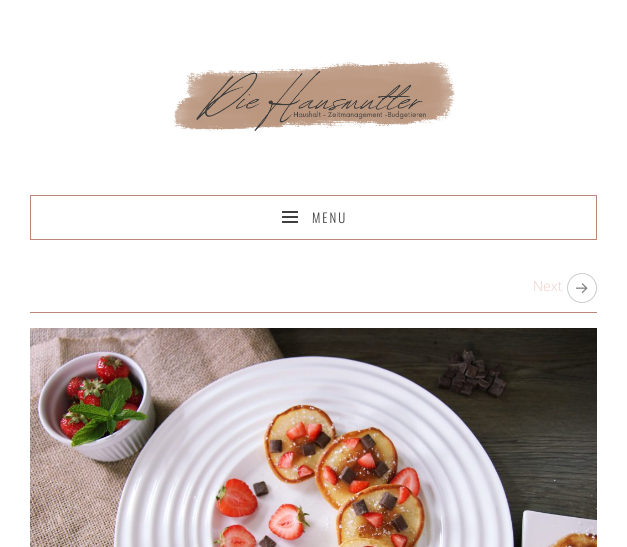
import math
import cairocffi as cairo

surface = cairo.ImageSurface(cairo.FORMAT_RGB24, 627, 547)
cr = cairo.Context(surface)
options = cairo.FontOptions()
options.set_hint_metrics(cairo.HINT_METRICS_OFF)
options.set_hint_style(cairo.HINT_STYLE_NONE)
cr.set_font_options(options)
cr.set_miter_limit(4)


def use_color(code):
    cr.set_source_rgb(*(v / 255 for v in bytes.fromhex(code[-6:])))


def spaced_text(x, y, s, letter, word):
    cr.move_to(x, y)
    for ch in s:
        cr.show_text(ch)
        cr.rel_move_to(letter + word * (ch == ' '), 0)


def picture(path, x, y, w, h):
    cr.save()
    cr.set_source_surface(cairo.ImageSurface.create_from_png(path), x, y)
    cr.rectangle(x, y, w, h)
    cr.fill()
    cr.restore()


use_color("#ffffff")
cr.paint()
picture("img1.png", 174, 60, 282, 71)
cr.rectangle(30.5, 195.5, 566, 44)
use_color("#b78879")
cr.set_line_width(1)
cr.stroke()
picture("img2.png", 282, 211, 16, 12)
cr.select_font_face("Oswald Light")
cr.set_font_size(13)
use_color("#404040")
spaced_text(312, 223, "MENU", 2, 0)
use_color("#b78879")
cr.rectangle(30, 312, 567, 1)
cr.fill()
cr.select_font_face("Open Sans Light")
cr.set_font_size(14)
use_color("#eccdc4")
cr.move_to(533, 291)
cr.show_text("Next")
cr.new_path()
cr.arc(582, 288, 14.5, 0, 2 * math.pi)
use_color("#cccccc")
cr.stroke()
picture("img3.png", 575, 283, 13, 11)
picture("img4.png", 30, 328, 567, 219)
surface.write_to_png("result.png")
